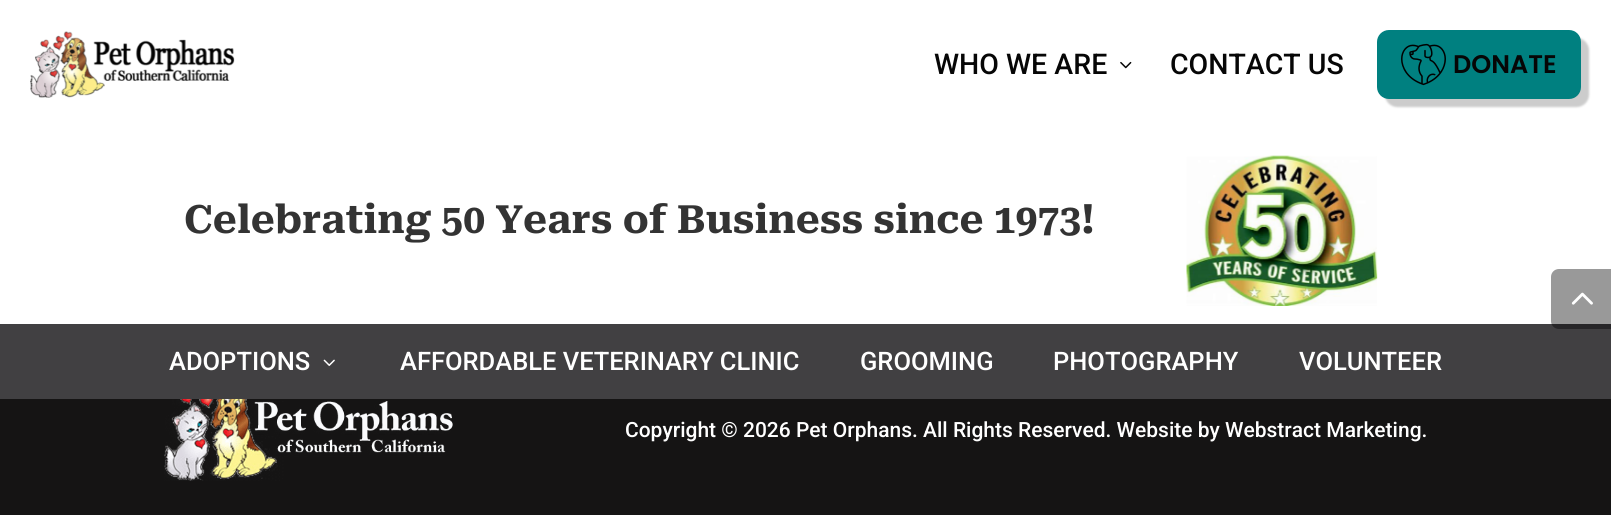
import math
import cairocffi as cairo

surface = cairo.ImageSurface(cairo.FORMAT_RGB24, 1611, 515)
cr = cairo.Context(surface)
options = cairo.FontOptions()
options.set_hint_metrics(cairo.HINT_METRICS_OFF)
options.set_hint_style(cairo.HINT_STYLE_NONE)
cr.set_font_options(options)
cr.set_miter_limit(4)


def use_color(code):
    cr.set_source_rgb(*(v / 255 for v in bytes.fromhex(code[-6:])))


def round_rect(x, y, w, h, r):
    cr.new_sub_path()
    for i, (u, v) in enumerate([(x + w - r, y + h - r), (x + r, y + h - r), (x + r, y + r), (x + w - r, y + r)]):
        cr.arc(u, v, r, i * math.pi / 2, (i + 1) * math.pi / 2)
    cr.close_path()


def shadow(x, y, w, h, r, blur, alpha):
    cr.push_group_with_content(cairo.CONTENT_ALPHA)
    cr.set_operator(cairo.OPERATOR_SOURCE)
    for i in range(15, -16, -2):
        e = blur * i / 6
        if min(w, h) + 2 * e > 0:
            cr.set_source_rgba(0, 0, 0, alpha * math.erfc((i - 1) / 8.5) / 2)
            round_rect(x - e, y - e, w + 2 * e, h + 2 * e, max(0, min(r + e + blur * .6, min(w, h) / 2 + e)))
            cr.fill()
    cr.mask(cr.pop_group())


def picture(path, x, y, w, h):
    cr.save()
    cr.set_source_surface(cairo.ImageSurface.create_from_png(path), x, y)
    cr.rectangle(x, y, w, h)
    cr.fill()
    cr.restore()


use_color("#151414")
cr.paint()
use_color("#ffffff")
cr.rectangle(0, 0, 1611, 324)
cr.fill()
picture("img1.png", 30, 31, 205, 67)
cr.select_font_face("Roboto Medium")
cr.set_font_size(28.5)
use_color("#060606")
cr.move_to(934, 74)
cr.show_text("WHO WE ARE")
picture("img2.png", 1120, 61, 12, 8)
cr.move_to(1170, 74)
cr.show_text("CONTACT US")
use_color("#cccccc")
shadow(1385, 38, 204, 69, 12, 1, 1)
use_color("#008080")
round_rect(1377, 30, 204, 69, 12)
cr.fill()
picture("img3.png", 1401, 43, 45, 43)
cr.select_font_face("Poppins SemiBold")
cr.set_font_size(25.5)
use_color("#060606")
cr.move_to(1453, 73)
cr.show_text("DONATE")
cr.select_font_face("Roboto Serif", cairo.FONT_SLANT_NORMAL, cairo.FONT_WEIGHT_BOLD)
cr.set_font_size(39)
use_color("#333333")
cr.move_to(184, 233)
cr.show_text("Celebrating 50 Years of Business since 1973!")
picture("img4.png", 1186, 155, 192, 151)
use_color("#414042")
cr.rectangle(0, 324, 1611, 75)
cr.fill()
cr.select_font_face("Roboto Medium")
cr.set_font_size(25.5)
use_color("#ffffff")
cr.move_to(169, 370)
cr.show_text("ADOPTIONS")
picture("img5.png", 323, 359, 12, 7)
cr.move_to(400, 370)
cr.show_text("AFFORDABLE VETERINARY CLINIC")
cr.move_to(860, 370)
cr.show_text("GROOMING")
cr.move_to(1053, 370)
cr.show_text("PHOTOGRAPHY")
cr.move_to(1299, 370)
cr.show_text("VOLUNTEER")
picture("img6.png", 164, 399, 289, 82)
cr.set_font_size(21)
cr.move_to(625, 437)
cr.show_text("Copyright © 2026 Pet Orphans. All Rights Reserved. Website by Webstract Marketing.")
cr.set_source_rgba(0, 0, 0, 0.4)
cr.new_path()
cr.move_to(1559, 269)
cr.line_to(1611, 269)
cr.line_to(1611, 329)
cr.line_to(1559, 329)
cr.curve_to(1554.5, 329, 1551, 325.5, 1551, 321)
cr.line_to(1551, 277)
cr.curve_to(1551, 272.5, 1554.5, 269, 1559, 269)
cr.close_path()
cr.fill()
picture("img7.png", 1571, 292, 22, 13)
surface.write_to_png("result.png")
